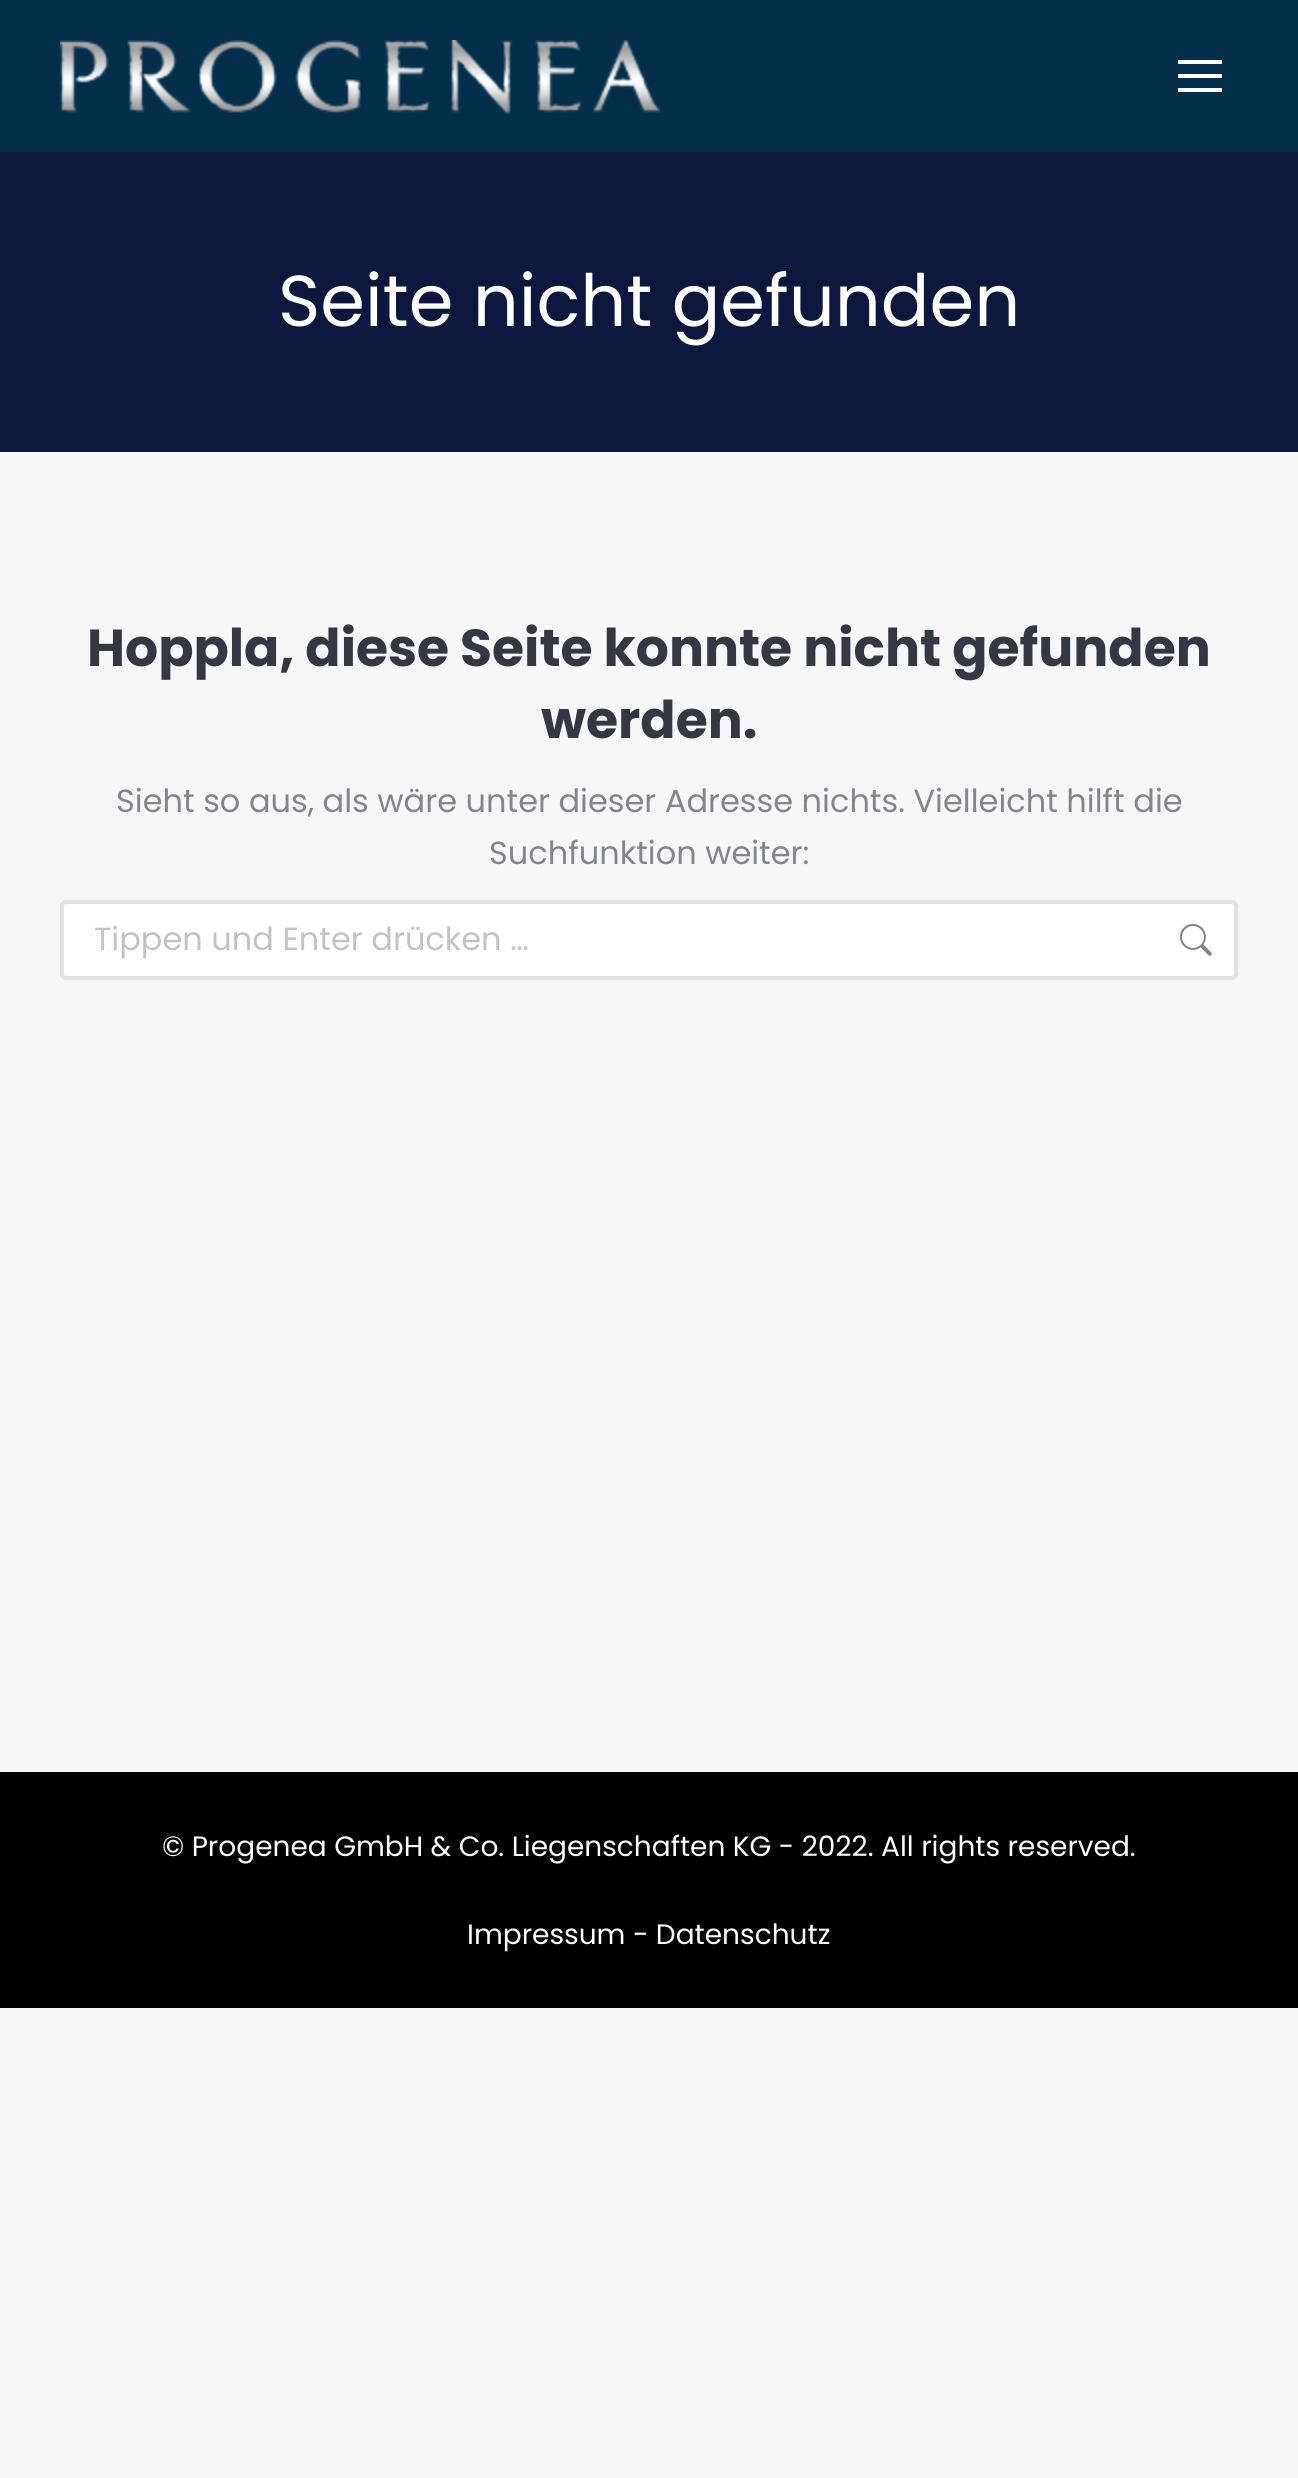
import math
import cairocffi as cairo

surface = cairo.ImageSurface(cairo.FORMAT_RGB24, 1298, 2478)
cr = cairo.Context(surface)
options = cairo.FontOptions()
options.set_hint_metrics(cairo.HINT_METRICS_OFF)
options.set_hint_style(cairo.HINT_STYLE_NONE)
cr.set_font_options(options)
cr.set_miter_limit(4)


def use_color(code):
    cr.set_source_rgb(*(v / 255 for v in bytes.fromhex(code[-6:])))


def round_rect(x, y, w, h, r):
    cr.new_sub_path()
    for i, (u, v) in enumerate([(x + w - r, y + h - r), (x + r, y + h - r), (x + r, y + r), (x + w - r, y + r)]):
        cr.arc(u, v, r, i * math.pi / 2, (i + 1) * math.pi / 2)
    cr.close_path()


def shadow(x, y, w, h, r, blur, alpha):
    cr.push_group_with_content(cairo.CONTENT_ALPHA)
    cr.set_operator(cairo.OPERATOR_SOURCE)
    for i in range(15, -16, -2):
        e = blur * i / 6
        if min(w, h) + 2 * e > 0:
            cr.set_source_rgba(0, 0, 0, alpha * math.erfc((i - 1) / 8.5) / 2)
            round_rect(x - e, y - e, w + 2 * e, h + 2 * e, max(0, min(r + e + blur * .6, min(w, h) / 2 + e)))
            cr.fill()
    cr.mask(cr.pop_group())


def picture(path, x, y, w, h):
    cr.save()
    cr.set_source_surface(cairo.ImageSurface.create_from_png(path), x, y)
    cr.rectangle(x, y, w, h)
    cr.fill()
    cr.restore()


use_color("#f7f7f7")
cr.paint()
use_color("#0d173d")
cr.rectangle(0, 152, 1298, 300)
cr.fill()
use_color("#000000")
shadow(-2, -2, 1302, 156, 0, 15, 0.07)
use_color("#042f4a")
cr.rectangle(0, 0, 1298, 152)
cr.fill()
picture("img1.png", 60, 40, 600, 74)
use_color("#ffffff")
cr.rectangle(1178, 60, 44, 4)
cr.fill()
cr.rectangle(1178, 74, 44, 4)
cr.fill()
cr.rectangle(1178, 88, 44, 4)
cr.fill()
cr.select_font_face("Poppins")
cr.set_font_size(72)
cr.move_to(278, 326)
cr.show_text("Seite nicht gefunden")
cr.select_font_face("Poppins", cairo.FONT_SLANT_NORMAL, cairo.FONT_WEIGHT_BOLD)
cr.set_font_size(52)
use_color("#333843")
cr.move_to(87, 666)
cr.show_text("Hoppla, diese Seite konnte nicht gefunden")
cr.move_to(541, 738)
cr.show_text("werden.")
cr.select_font_face("Poppins")
cr.set_font_size(32)
use_color("#85868c")
cr.move_to(116, 812)
cr.show_text("Sieht so aus, als wäre unter dieser Adresse nichts. Vielleicht hilft die")
cr.move_to(489, 864)
cr.show_text("Suchfunktion weiter:")
use_color("#ffffff")
round_rect(62, 902, 1174, 76, 4)
cr.fill_preserve()
use_color("#e2e2e3")
cr.set_line_width(4)
cr.stroke()
use_color("#c2c3c6")
cr.move_to(94, 950)
cr.show_text("Tippen und Enter drücken …")
picture("img2.png", 1180, 924, 32, 32)
use_color("#000000")
cr.rectangle(0, 1772, 1298, 236)
cr.fill()
cr.set_font_size(28)
use_color("#ffffff")
cr.move_to(162, 1856)
cr.show_text("© Progenea GmbH & Co. Liegenschaften KG - 2022. All rights reserved.")
cr.move_to(467, 1944)
cr.show_text("Impressum - Datenschutz")
surface.write_to_png("result.png")
